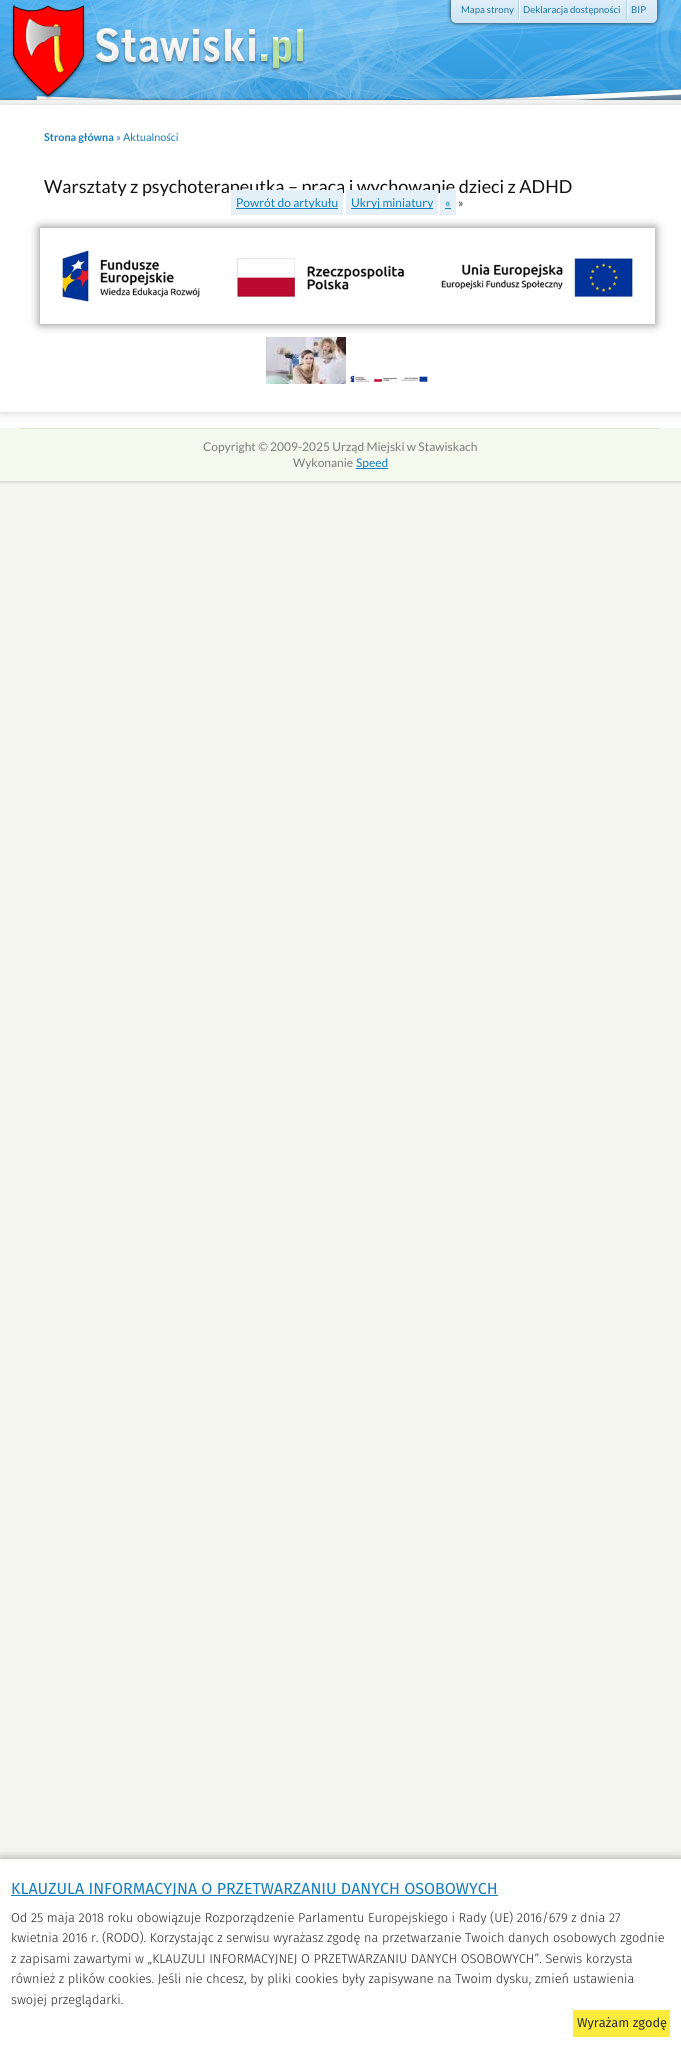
import math
import cairocffi as cairo

surface = cairo.ImageSurface(cairo.FORMAT_RGB24, 681, 2048)
cr = cairo.Context(surface)
options = cairo.FontOptions()
options.set_hint_metrics(cairo.HINT_METRICS_OFF)
options.set_hint_style(cairo.HINT_STYLE_NONE)
cr.set_font_options(options)
cr.set_miter_limit(4)


def use_color(code):
    cr.set_source_rgb(*(v / 255 for v in bytes.fromhex(code[-6:])))


def round_rect(x, y, w, h, r):
    cr.new_sub_path()
    for i, (u, v) in enumerate([(x + w - r, y + h - r), (x + r, y + h - r), (x + r, y + r), (x + w - r, y + r)]):
        cr.arc(u, v, r, i * math.pi / 2, (i + 1) * math.pi / 2)
    cr.close_path()


def shadow(x, y, w, h, r, blur, alpha):
    cr.push_group_with_content(cairo.CONTENT_ALPHA)
    cr.set_operator(cairo.OPERATOR_SOURCE)
    for i in range(15, -16, -2):
        e = blur * i / 6
        if min(w, h) + 2 * e > 0:
            cr.set_source_rgba(0, 0, 0, alpha * math.erfc((i - 1) / 8.5) / 2)
            round_rect(x - e, y - e, w + 2 * e, h + 2 * e, max(0, min(r + e + blur * .6, min(w, h) / 2 + e)))
            cr.fill()
    cr.mask(cr.pop_group())


def picture(path, x, y, w, h):
    cr.save()
    cr.set_source_surface(cairo.ImageSurface.create_from_png(path), x, y)
    cr.rectangle(x, y, w, h)
    cr.fill()
    cr.restore()


use_color("#f6f6f1")
cr.paint()
use_color("#ffffff")
cr.rectangle(0, 412, 681, 16)
cr.fill()
picture("img1.png", 0, 0, 681, 105)
picture("img2.png", 447, 0, 9, 26)
picture("img3.png", 456, 0, 205, 27)
cr.select_font_face("Lato")
cr.set_font_size(9.6)
use_color("#1b74ac")
cr.move_to(461, 13)
cr.show_text("Mapa strony")
picture("img4.png", 518, 0, 2, 20)
cr.move_to(523, 13)
cr.show_text("Deklaracja dostępności")
picture("img4.png", 626, 0, 2, 20)
cr.move_to(631, 13)
cr.show_text("BIP")
use_color("#000000")
shadow(0, 105, 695, 307, 0, 5, 0.2)
use_color("#ffffff")
cr.rectangle(0, 105, 681, 307)
cr.fill()
cr.select_font_face("Lato", cairo.FONT_SLANT_NORMAL, cairo.FONT_WEIGHT_BOLD)
cr.set_font_size(10.75)
use_color("#147ec0")
cr.move_to(44, 141)
cr.show_text("Strona główna")
cr.select_font_face("Lato")
cr.move_to(116, 141)
cr.show_text("» Aktualności")
cr.set_font_size(18)
use_color("#111111")
cr.move_to(44, 193)
cr.show_text("Warsztaty z psychoterapeutką – praca i wychowanie dzieci z ADHD")
use_color("#e3f0f8")
cr.rectangle(231, 190, 112, 25)
cr.fill()
use_color("#147ec0")
cr.rectangle(236, 208, 102, 1)
cr.fill()
cr.set_font_size(12)
cr.move_to(236, 207)
cr.show_text("Powrót do artykułu")
use_color("#e3f0f8")
cr.rectangle(346, 190, 92, 25)
cr.fill()
use_color("#147ec0")
cr.rectangle(351, 208, 82, 1)
cr.fill()
cr.move_to(351, 207)
cr.show_text("Ukryj miniatury")
use_color("#e3f0f8")
cr.rectangle(440, 190, 16, 25)
cr.fill()
use_color("#147ec0")
cr.move_to(445, 207)
cr.show_text("«")
cr.rectangle(445, 208, 6, 1)
cr.fill()
use_color("#35342d")
cr.move_to(458, 207)
cr.show_text("»")
cr.save()
cr.set_fill_rule(cairo.FILL_RULE_EVEN_ODD)
cr.new_path()
cr.move_to(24, 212)
cr.line_to(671, 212)
cr.line_to(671, 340)
cr.line_to(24, 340)
cr.close_path()
cr.move_to(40, 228)
cr.line_to(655, 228)
cr.line_to(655, 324)
cr.line_to(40, 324)
cr.close_path()
cr.clip()
use_color("#000000")
shadow(40, 228, 615, 96, 0, 5, 0.5)
cr.restore()
picture("img5.png", 62, 250, 571, 52)
picture("img6.png", 266, 337, 80, 47)
picture("img7.png", 350, 375, 78, 8)
picture("img8.png", 0, 428, 681, 87)
use_color("#dee7d1")
cr.rectangle(20, 428, 641, 1)
cr.fill()
use_color("#7a7c76")
cr.move_to(203, 451)
cr.show_text("Copyright © 2009-2025 Urząd Miejski w Stawiskach")
cr.move_to(293, 467)
cr.show_text("Wykonanie")
use_color("#147ec0")
cr.rectangle(356, 468, 32, 1)
cr.fill()
cr.move_to(356, 467)
cr.show_text("Speed")
use_color("#000000")
shadow(0, 1859, 681, 189, 0, 5, 0.4)
use_color("#fefefe")
cr.rectangle(0, 1859, 681, 189)
cr.fill()
use_color("#147ec0")
cr.rectangle(11, 1895, 487, 1)
cr.fill()
cr.select_font_face("Fira Sans")
cr.set_font_size(16)
cr.move_to(11, 1894)
cr.show_text("KLAUZULA INFORMACYJNA O PRZETWARZANIU DANYCH OSOBOWYCH")
cr.select_font_face("Fira Sans Light")
cr.set_font_size(12.8)
use_color("#222222")
cr.move_to(11, 1922)
cr.show_text("Od 25 maja 2018 roku obowiązuje Rozporządzenie Parlamentu Europejskiego i Rady (UE) 2016/679 z dnia 27")
cr.move_to(11, 1942)
cr.show_text("kwietnia 2016 r. (RODO). Korzystając z serwisu wyrażasz zgodę na przetwarzanie Twoich danych osobowych zgodnie")
cr.move_to(11, 1963)
cr.show_text("z zapisami zawartymi w „KLAUZULI INFORMACYJNEJ O PRZETWARZANIU DANYCH OSOBOWYCH”. Serwis korzysta")
cr.move_to(11, 1983)
cr.show_text("również z plików cookies. Jeśli nie chcesz, by pliki cookies były zapisywane na Twoim dysku, zmień ustawienia")
cr.move_to(11, 2004)
cr.show_text("swojej przeglądarki.")
use_color("#ffeb3b")
cr.rectangle(573, 2010, 97, 27)
cr.fill()
cr.select_font_face("Fira Sans")
use_color("#263238")
cr.move_to(577, 2027)
cr.show_text("Wyrażam zgodę")
surface.write_to_png("result.png")
